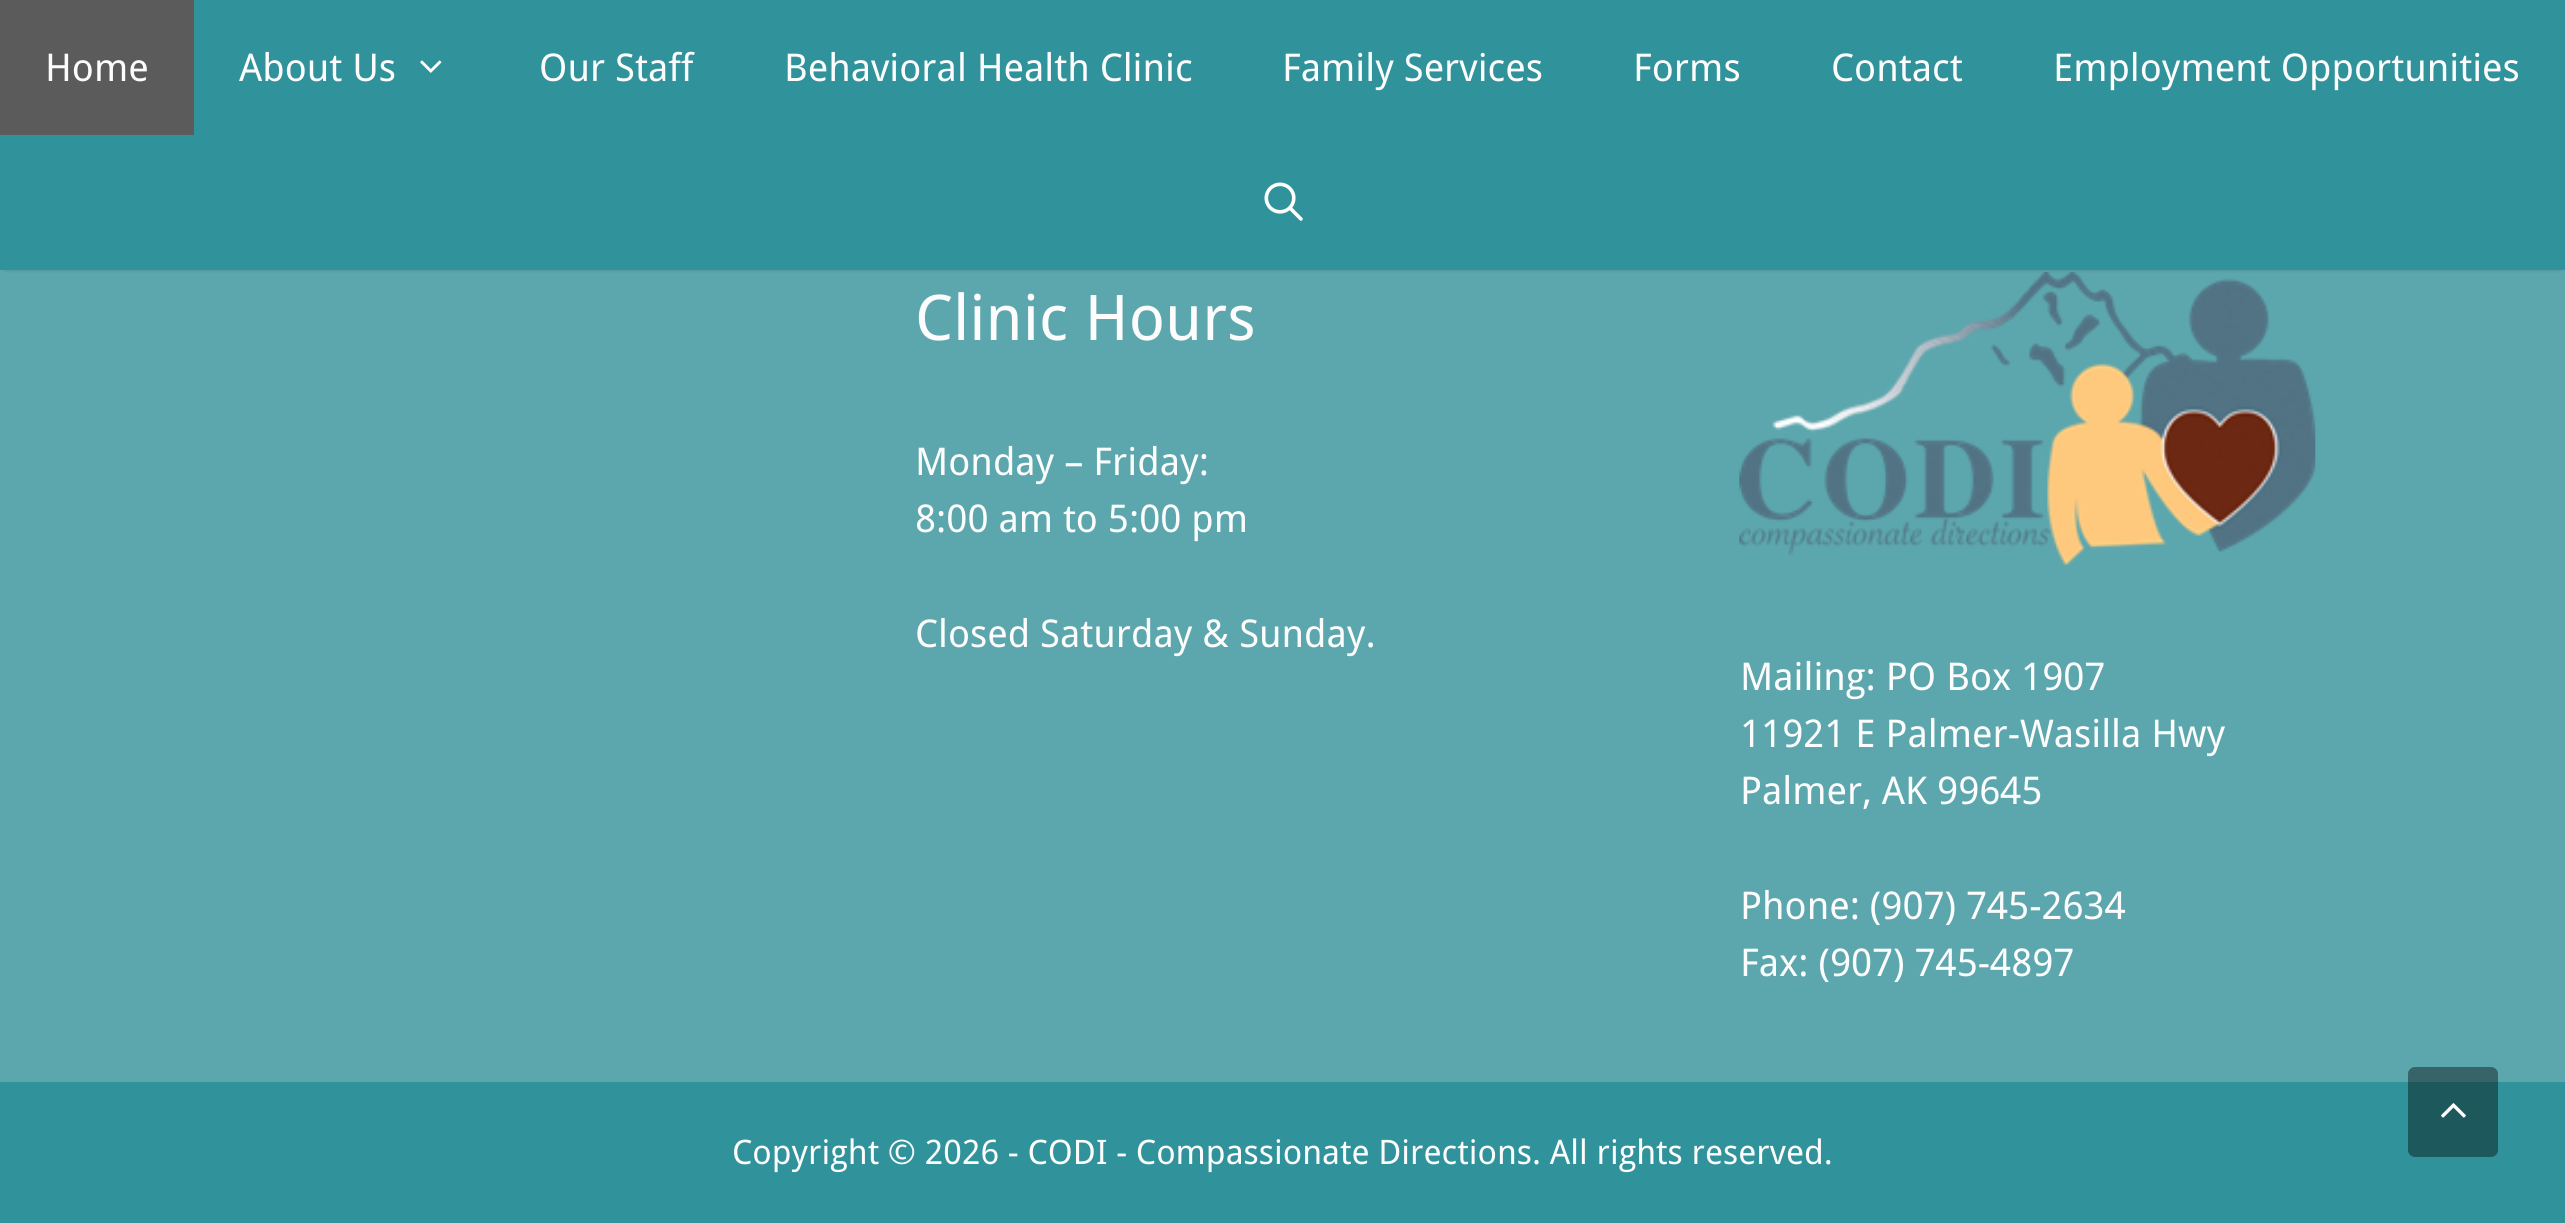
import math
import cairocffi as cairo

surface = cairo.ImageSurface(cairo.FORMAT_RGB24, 2565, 1223)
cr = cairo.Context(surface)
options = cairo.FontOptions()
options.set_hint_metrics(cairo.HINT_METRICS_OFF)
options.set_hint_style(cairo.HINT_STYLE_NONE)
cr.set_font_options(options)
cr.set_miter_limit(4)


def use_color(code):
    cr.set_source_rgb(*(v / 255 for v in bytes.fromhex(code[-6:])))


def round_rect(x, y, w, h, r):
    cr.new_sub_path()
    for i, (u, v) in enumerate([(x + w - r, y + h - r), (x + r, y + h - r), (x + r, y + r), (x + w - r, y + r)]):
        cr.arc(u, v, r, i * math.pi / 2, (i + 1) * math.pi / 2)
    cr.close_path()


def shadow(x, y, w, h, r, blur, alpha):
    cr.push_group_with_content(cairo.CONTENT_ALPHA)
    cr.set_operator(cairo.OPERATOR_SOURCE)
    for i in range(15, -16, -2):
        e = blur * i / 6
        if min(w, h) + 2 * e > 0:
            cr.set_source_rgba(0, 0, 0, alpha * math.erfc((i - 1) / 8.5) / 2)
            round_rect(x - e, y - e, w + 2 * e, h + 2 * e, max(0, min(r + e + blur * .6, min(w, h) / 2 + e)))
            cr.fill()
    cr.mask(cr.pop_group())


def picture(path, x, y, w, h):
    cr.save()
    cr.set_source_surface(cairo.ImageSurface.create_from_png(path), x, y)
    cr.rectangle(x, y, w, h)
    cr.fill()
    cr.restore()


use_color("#5ca7ad")
cr.paint()
picture("img3.png", 1739, 272, 577, 293)
use_color("#000000")
shadow(5, 9, 2556, 261, 0, 2, 0.2)
use_color("#30929b")
cr.rectangle(0, 0, 2565, 270)
cr.fill()
use_color("#5b5b5b")
cr.rectangle(0, 0, 194, 135)
cr.fill()
cr.select_font_face("Droid Sans")
cr.set_font_size(38.25)
use_color("#fcfcfc")
cr.move_to(45, 81)
cr.show_text("Home")
cr.move_to(239, 81)
cr.show_text("About Us")
picture("img1.png", 420, 60, 22, 13)
cr.move_to(539, 81)
cr.show_text("Our Staff")
cr.move_to(784, 81)
cr.show_text("Behavioral Health Clinic")
cr.move_to(1282, 81)
cr.show_text("Family Services")
cr.move_to(1633, 81)
cr.show_text("Forms")
cr.move_to(1831, 81)
cr.show_text("Contact")
cr.move_to(2053, 81)
cr.show_text("Employment Opportunities")
picture("img2.png", 1264, 182, 39, 39)
cr.set_font_size(63)
cr.move_to(915, 340)
cr.show_text("Clinic Hours")
cr.set_font_size(38.25)
cr.move_to(915, 475)
cr.show_text("Monday – Friday:")
cr.move_to(915, 532)
cr.show_text("8:00 am to 5:00 pm")
cr.move_to(915, 647)
cr.show_text("Closed Saturday & Sunday.")
cr.move_to(1740, 690)
cr.show_text("Mailing: PO Box 1907")
cr.move_to(1740, 747)
cr.show_text("11921 E Palmer-Wasilla Hwy")
cr.move_to(1740, 804)
cr.show_text("Palmer, AK 99645")
cr.move_to(1740, 919)
cr.show_text("Phone: (907) 745-2634")
cr.move_to(1740, 976)
cr.show_text("Fax: (907) 745-4897")
use_color("#30929b")
cr.rectangle(0, 1082, 2565, 141)
cr.fill()
cr.set_font_size(33.75)
use_color("#fcfcfc")
cr.move_to(732, 1164)
cr.show_text("Copyright © 2026 - CODI - Compassionate Directions. All rights reserved.")
cr.set_source_rgba(0, 0, 0, 0.4)
round_rect(2408, 1067, 90, 90, 7)
cr.fill()
picture("img4.png", 2441, 1103, 25, 15)
surface.write_to_png("result.png")
